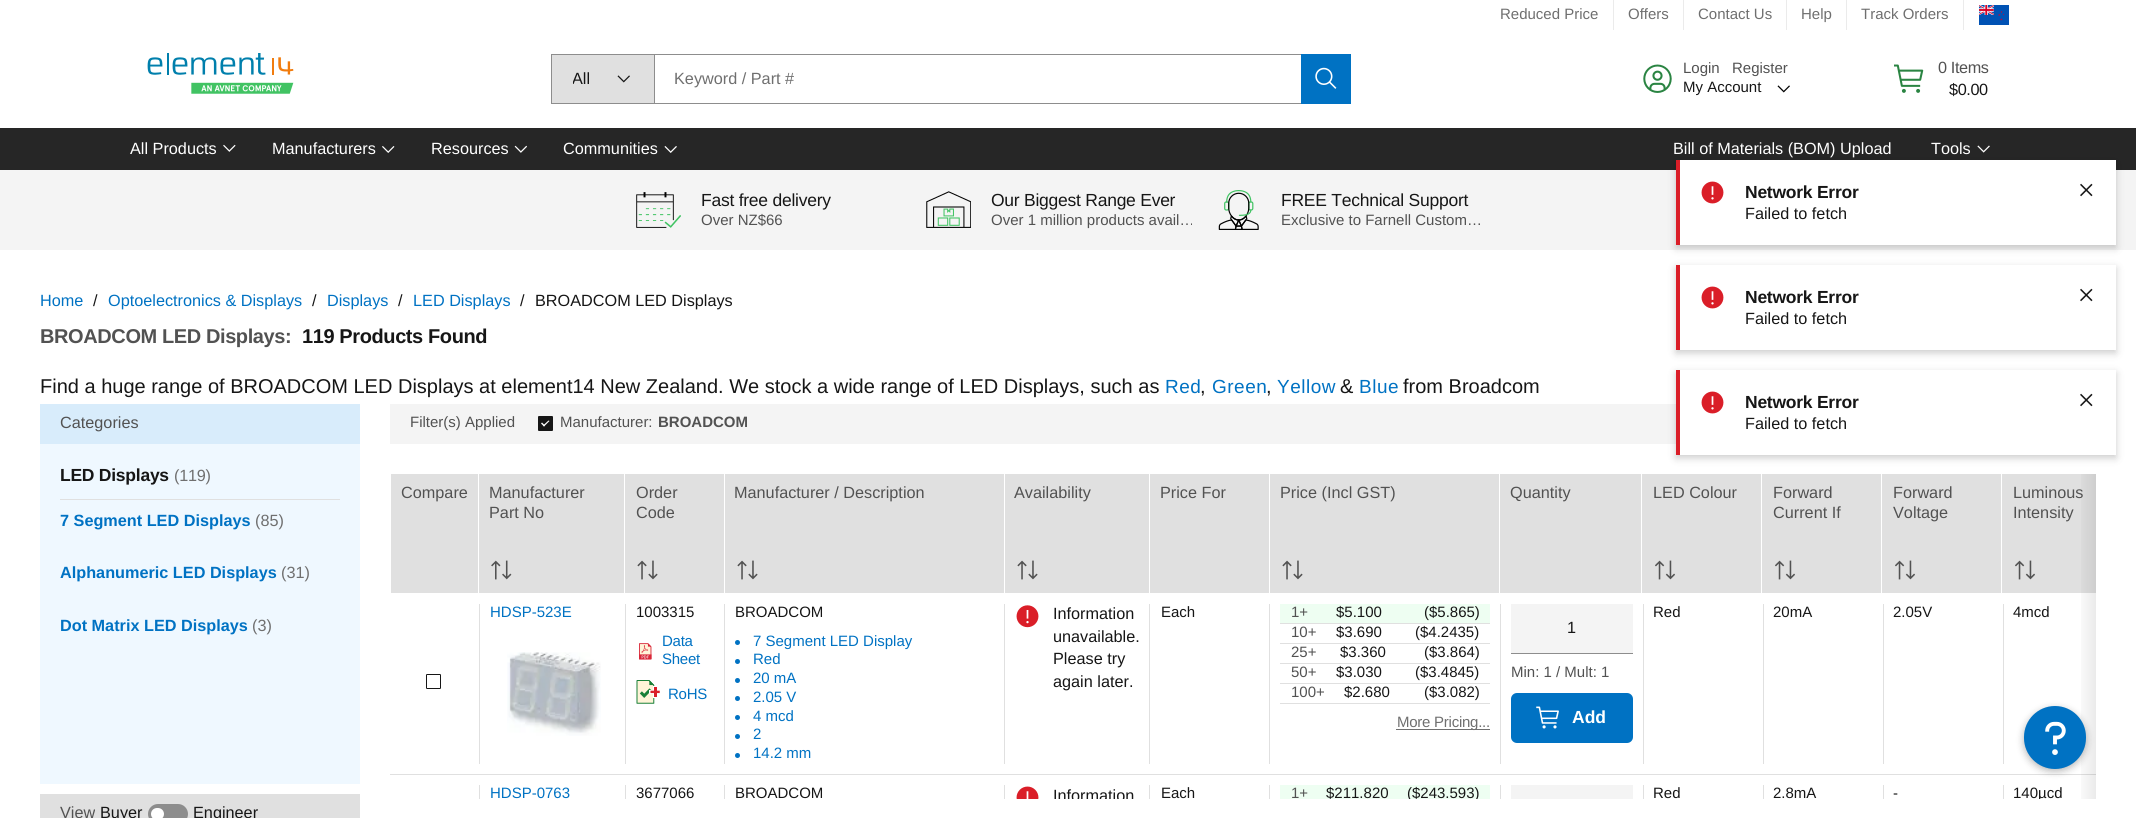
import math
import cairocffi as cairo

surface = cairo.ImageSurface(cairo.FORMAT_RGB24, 2136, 818)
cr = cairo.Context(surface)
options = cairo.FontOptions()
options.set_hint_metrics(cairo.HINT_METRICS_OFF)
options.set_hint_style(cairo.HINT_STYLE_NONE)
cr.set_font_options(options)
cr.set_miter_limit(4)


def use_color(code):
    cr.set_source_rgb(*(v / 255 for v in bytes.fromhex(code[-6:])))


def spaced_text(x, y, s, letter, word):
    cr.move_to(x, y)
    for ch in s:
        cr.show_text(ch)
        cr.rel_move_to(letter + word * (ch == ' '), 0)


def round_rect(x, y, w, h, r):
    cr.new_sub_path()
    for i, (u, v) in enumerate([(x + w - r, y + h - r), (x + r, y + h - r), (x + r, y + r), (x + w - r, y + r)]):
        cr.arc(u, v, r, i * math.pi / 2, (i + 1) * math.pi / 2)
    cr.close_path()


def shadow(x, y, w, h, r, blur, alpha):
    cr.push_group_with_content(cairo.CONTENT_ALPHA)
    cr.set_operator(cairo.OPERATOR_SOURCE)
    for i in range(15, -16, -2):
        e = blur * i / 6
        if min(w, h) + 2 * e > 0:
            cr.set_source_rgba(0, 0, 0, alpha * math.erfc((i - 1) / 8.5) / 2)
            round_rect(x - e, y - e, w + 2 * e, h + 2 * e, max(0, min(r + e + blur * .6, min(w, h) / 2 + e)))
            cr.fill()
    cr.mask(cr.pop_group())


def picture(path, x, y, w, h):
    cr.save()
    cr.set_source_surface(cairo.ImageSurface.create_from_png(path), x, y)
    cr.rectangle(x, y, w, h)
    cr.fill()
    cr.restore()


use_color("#ffffff")
cr.paint()
use_color("#ebebeb")
cr.rectangle(1613, 0, 1, 30)
cr.fill()
cr.select_font_face("Liberation Sans")
cr.set_font_size(15)
use_color("#6f6f6f")
cr.move_to(1500, 19)
cr.show_text("Reduced Price")
use_color("#ebebeb")
cr.rectangle(1683, 0, 1, 30)
cr.fill()
use_color("#6f6f6f")
cr.move_to(1628, 19)
cr.show_text("Offers")
use_color("#ebebeb")
cr.rectangle(1786, 0, 1, 30)
cr.fill()
use_color("#6f6f6f")
cr.move_to(1698, 19)
cr.show_text("Contact Us")
use_color("#ebebeb")
cr.rectangle(1846, 0, 1, 30)
cr.fill()
use_color("#6f6f6f")
cr.move_to(1801, 19)
cr.show_text("Help")
use_color("#ebebeb")
cr.rectangle(1963, 0, 1, 30)
cr.fill()
use_color("#6f6f6f")
cr.move_to(1861, 19)
cr.show_text("Track Orders")
picture("img1.png", 1979, 5, 30, 20)
picture("img2.png", 147, 53, 147, 41)
use_color("#e0e0e0")
cr.rectangle(552, 55, 102, 48)
cr.fill()
use_color("#8d8d8d")
cr.rectangle(551, 54, 750, 1)
cr.fill()
cr.rectangle(551, 103, 750, 1)
cr.fill()
cr.rectangle(551, 54, 1, 50)
cr.fill()
cr.save()
cr.rectangle(573, 68, 21, 22)
cr.clip()
cr.set_font_size(16.25)
use_color("#161616")
cr.move_to(572, 84)
cr.show_text("All")
cr.restore()
picture("img3.png", 617, 75, 13, 8)
cr.rectangle(654, 54, 1, 50)
cr.fill()
cr.set_font_size(16.25)
use_color("#6f6f6f")
cr.move_to(674, 84)
cr.show_text("Keyword / Part #")
use_color("#0072c3")
cr.rectangle(1301, 54, 50, 50)
cr.fill()
picture("img4.png", 1315, 67, 22, 22)
picture("img5.png", 1643, 64, 29, 29)
cr.set_font_size(15)
use_color("#525252")
cr.move_to(1683, 73)
cr.show_text("Login")
cr.move_to(1732, 73)
cr.show_text("Register")
use_color("#161616")
cr.move_to(1683, 92)
cr.show_text("My Account")
picture("img6.png", 1777, 85, 13, 8)
picture("img7.png", 1894, 64, 30, 29)
cr.set_font_size(16.25)
use_color("#525252")
spaced_text(1938, 73, "0 Items", -0.4, 0)
use_color("#161616")
spaced_text(1949, 95, "$0.00", -0.4, 0)
use_color("#262626")
cr.rectangle(0, 128, 2136, 42)
cr.fill()
use_color("#ffffff")
cr.move_to(130, 154)
cr.show_text("All Products")
picture("img8.png", 223, 144, 13, 8)
cr.move_to(272, 154)
cr.show_text("Manufacturers")
picture("img9.png", 382, 146, 13, 7)
cr.move_to(431, 154)
cr.show_text("Resources")
picture("img10.png", 514, 145, 13, 8)
cr.move_to(563, 154)
cr.show_text("Communities")
picture("img11.png", 664, 146, 13, 7)
cr.move_to(1673, 154)
cr.show_text("Bill of Materials (BOM) Upload")
cr.move_to(1931, 154)
cr.show_text("Tools")
picture("img12.png", 1977, 145, 13, 8)
use_color("#f4f4f4")
cr.rectangle(0, 170, 2136, 80)
cr.fill()
use_color("#000000")
shadow(1676, 163, 440, 85, 0, 4, 0.2)
use_color("#ffffff")
cr.rectangle(1680, 160, 436, 85)
cr.fill()
use_color("#da1e28")
cr.rectangle(1676, 160, 4, 85)
cr.fill()
picture("img13.png", 1701, 181, 23, 23)
cr.select_font_face("Liberation Sans", cairo.FONT_SLANT_NORMAL, cairo.FONT_WEIGHT_BOLD)
cr.set_font_size(17.5)
use_color("#161616")
spaced_text(1745, 198, "Network Error", -0.25, 0)
cr.select_font_face("Liberation Sans")
cr.set_font_size(16.25)
cr.move_to(1745, 219)
cr.show_text("Failed to fetch")
picture("img14.png", 2080, 183, 13, 14)
use_color("#000000")
shadow(1676, 268, 440, 85, 0, 4, 0.2)
use_color("#ffffff")
cr.rectangle(1680, 265, 436, 85)
cr.fill()
use_color("#da1e28")
cr.rectangle(1676, 265, 4, 85)
cr.fill()
picture("img13.png", 1701, 286, 23, 23)
cr.select_font_face("Liberation Sans", cairo.FONT_SLANT_NORMAL, cairo.FONT_WEIGHT_BOLD)
cr.set_font_size(17.5)
use_color("#161616")
spaced_text(1745, 303, "Network Error", -0.25, 0)
cr.select_font_face("Liberation Sans")
cr.set_font_size(16.25)
cr.move_to(1745, 324)
cr.show_text("Failed to fetch")
picture("img14.png", 2080, 288, 13, 14)
use_color("#f4f4f4")
cr.rectangle(390, 404, 1286, 40)
cr.fill()
use_color("#000000")
shadow(1676, 373, 440, 85, 0, 4, 0.2)
use_color("#ffffff")
cr.rectangle(1680, 370, 436, 85)
cr.fill()
use_color("#da1e28")
cr.rectangle(1676, 370, 4, 85)
cr.fill()
picture("img13.png", 1701, 391, 23, 23)
cr.select_font_face("Liberation Sans", cairo.FONT_SLANT_NORMAL, cairo.FONT_WEIGHT_BOLD)
cr.set_font_size(17.5)
use_color("#161616")
spaced_text(1745, 408, "Network Error", -0.25, 0)
cr.select_font_face("Liberation Sans")
cr.set_font_size(16.25)
cr.move_to(1745, 429)
cr.show_text("Failed to fetch")
picture("img14.png", 2080, 393, 13, 14)
picture("img15.png", 636, 192, 45, 36)
cr.set_font_size(17.5)
spaced_text(701, 206, "Fast free delivery", -0.25, 0)
cr.set_font_size(15)
use_color("#525252")
cr.move_to(701, 225)
cr.show_text("Over NZ$66")
picture("img16.png", 926, 191, 45, 37)
cr.set_font_size(17.5)
use_color("#161616")
spaced_text(991, 206, "Our Biggest Range Ever", -0.25, 0)
cr.set_font_size(15)
use_color("#525252")
cr.move_to(991, 225)
cr.show_text("Over 1 million products avail…")
picture("img17.png", 1218, 190, 41, 40)
cr.set_font_size(17.5)
use_color("#161616")
spaced_text(1281, 206, "FREE Technical Support", -0.25, 0)
cr.set_font_size(15)
use_color("#525252")
cr.move_to(1281, 225)
cr.show_text("Exclusive to Farnell Custom…")
cr.set_font_size(16.25)
use_color("#0072c3")
cr.move_to(40, 306)
cr.show_text("Home")
use_color("#161616")
cr.move_to(93, 306)
cr.show_text("/")
use_color("#0072c3")
cr.move_to(108, 306)
cr.show_text("Optoelectronics & Displays")
use_color("#161616")
cr.move_to(312, 306)
cr.show_text("/")
use_color("#0072c3")
cr.move_to(327, 306)
cr.show_text("Displays")
use_color("#161616")
cr.move_to(398, 306)
cr.show_text("/")
use_color("#0072c3")
cr.move_to(413, 306)
cr.show_text("LED Displays")
use_color("#161616")
cr.move_to(520, 306)
cr.show_text("/")
cr.move_to(535, 306)
cr.show_text("BROADCOM LED Displays")
cr.select_font_face("Liberation Sans", cairo.FONT_SLANT_NORMAL, cairo.FONT_WEIGHT_BOLD)
cr.set_font_size(20)
use_color("#525252")
spaced_text(40, 343, "BROADCOM LED Displays:", -0.4, 0)
use_color("#161616")
spaced_text(302, 343, "119 Products Found", -0.4, 0)
cr.select_font_face("Liberation Sans")
cr.move_to(40, 393)
cr.show_text("Find a huge range of BROADCOM LED Displays at element14 New Zealand. We stock a wide range of LED Displays, such as")
cr.set_font_size(19)
use_color("#0072c3")
spaced_text(1165, 393, "Red", 0.5, 0)
cr.set_font_size(20)
use_color("#161616")
cr.move_to(1200, 393)
cr.show_text(",")
cr.set_font_size(19)
use_color("#0072c3")
spaced_text(1212, 393, "Green", 0.5, 0)
cr.set_font_size(20)
use_color("#161616")
cr.move_to(1266, 393)
cr.show_text(",")
cr.set_font_size(19)
use_color("#0072c3")
spaced_text(1277, 393, "Yellow", 0.5, 0)
cr.set_font_size(20)
use_color("#161616")
cr.move_to(1340, 393)
cr.show_text("&")
cr.set_font_size(19)
use_color("#0072c3")
spaced_text(1359, 393, "Blue", 0.5, 0)
cr.set_font_size(20)
use_color("#161616")
cr.move_to(1403, 393)
cr.show_text("from Broadcom")
use_color("#d8ecfb")
cr.rectangle(40, 404, 320, 40)
cr.fill()
cr.set_font_size(16.25)
use_color("#525252")
cr.move_to(60, 428)
cr.show_text("Categories")
use_color("#eff8ff")
cr.rectangle(40, 444, 320, 340)
cr.fill()
use_color("#e0e0e0")
cr.rectangle(60, 499, 280, 1)
cr.fill()
cr.select_font_face("Liberation Sans", cairo.FONT_SLANT_NORMAL, cairo.FONT_WEIGHT_BOLD)
cr.set_font_size(17.5)
use_color("#161616")
spaced_text(60, 481, "LED Displays", -0.25, 0)
cr.select_font_face("Liberation Sans")
cr.set_font_size(16.25)
use_color("#6f6f6f")
spaced_text(174, 481, "(119)", -0.25, 0)
cr.select_font_face("Liberation Sans", cairo.FONT_SLANT_NORMAL, cairo.FONT_WEIGHT_BOLD)
use_color("#0072c3")
cr.move_to(60, 526)
cr.show_text("7 Segment LED Displays")
cr.select_font_face("Liberation Sans")
use_color("#6f6f6f")
cr.move_to(255, 526)
cr.show_text("(85)")
cr.select_font_face("Liberation Sans", cairo.FONT_SLANT_NORMAL, cairo.FONT_WEIGHT_BOLD)
use_color("#0072c3")
cr.move_to(60, 578)
cr.show_text("Alphanumeric LED Displays")
cr.select_font_face("Liberation Sans")
use_color("#6f6f6f")
cr.move_to(281, 578)
cr.show_text("(31)")
cr.select_font_face("Liberation Sans", cairo.FONT_SLANT_NORMAL, cairo.FONT_WEIGHT_BOLD)
use_color("#0072c3")
cr.move_to(60, 631)
cr.show_text("Dot Matrix LED Displays")
cr.select_font_face("Liberation Sans")
use_color("#6f6f6f")
cr.move_to(252, 631)
cr.show_text("(3)")
use_color("#e0e0e0")
cr.rectangle(40, 794, 320, 24)
cr.fill()
use_color("#525252")
cr.move_to(60, 818)
cr.show_text("View")
use_color("#161616")
cr.move_to(100, 818)
cr.show_text("Buyer")
use_color("#8d8d8d")
round_rect(148, 804, 40, 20, 10)
cr.fill()
use_color("#ffffff")
round_rect(151, 808, 13, 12, 6)
cr.fill()
use_color("#161616")
cr.move_to(193, 818)
cr.show_text("Engineer")
cr.set_font_size(15)
use_color("#525252")
cr.move_to(410, 427)
cr.show_text("Filter(s) Applied")
use_color("#161616")
round_rect(538.5, 416.5, 14, 14, 0.5)
cr.fill_preserve()
cr.set_line_width(1)
cr.stroke()
use_color("#525252")
cr.move_to(560, 427)
cr.show_text("Manufacturer:")
cr.select_font_face("Liberation Sans", cairo.FONT_SLANT_NORMAL, cairo.FONT_WEIGHT_BOLD)
cr.move_to(658, 427)
cr.show_text("BROADCOM")
use_color("#ffffff")
cr.new_path()
cr.move_to(543, 425.5)
cr.line_to(548.5, 420.5)
cr.line_to(549.5, 421)
cr.line_to(544, 426.5)
cr.close_path()
cr.fill()
cr.new_path()
cr.move_to(541, 423.5)
cr.line_to(542, 422.5)
cr.line_to(545, 425.5)
cr.line_to(544, 426.5)
cr.close_path()
cr.fill()
use_color("#e0e0e0")
cr.rectangle(391, 474, 87, 119)
cr.fill()
cr.select_font_face("Liberation Sans")
cr.set_font_size(16.25)
use_color("#525252")
cr.move_to(401, 498)
cr.show_text("Compare")
use_color("#e0e0e0")
cr.rectangle(479, 474, 145, 119)
cr.fill()
use_color("#525252")
cr.move_to(489, 498)
cr.show_text("Manufacturer")
cr.move_to(489, 518)
cr.show_text("Part No")
picture("img18.png", 491, 560, 21, 20)
use_color("#e0e0e0")
cr.rectangle(625, 474, 99, 119)
cr.fill()
use_color("#525252")
cr.move_to(636, 498)
cr.show_text("Order")
cr.move_to(636, 518)
cr.show_text("Code")
picture("img19.png", 637, 560, 21, 20)
use_color("#e0e0e0")
cr.rectangle(725, 474, 279, 119)
cr.fill()
use_color("#525252")
cr.move_to(734, 498)
cr.show_text("Manufacturer / Description")
picture("img19.png", 737, 560, 21, 20)
use_color("#e0e0e0")
cr.rectangle(1005, 474, 144, 119)
cr.fill()
use_color("#525252")
cr.move_to(1014, 498)
cr.show_text("Availability")
picture("img19.png", 1017, 560, 21, 20)
use_color("#e0e0e0")
cr.rectangle(1150, 474, 119, 119)
cr.fill()
use_color("#525252")
cr.move_to(1160, 498)
cr.show_text("Price For")
use_color("#e0e0e0")
cr.rectangle(1270, 474, 229, 119)
cr.fill()
use_color("#525252")
cr.move_to(1280, 498)
cr.show_text("Price (Incl GST)")
picture("img19.png", 1282, 560, 21, 20)
use_color("#e0e0e0")
cr.rectangle(1500, 474, 596, 119)
cr.fill()
use_color("#525252")
cr.move_to(1510, 498)
cr.show_text("Quantity")
use_color("#ffffff")
cr.rectangle(1641, 474, 1, 120)
cr.fill()
use_color("#525252")
cr.move_to(1653, 498)
cr.show_text("LED Colour")
picture("img20.png", 1655, 560, 20, 20)
use_color("#ffffff")
cr.rectangle(1761, 474, 1, 120)
cr.fill()
use_color("#525252")
cr.move_to(1773, 498)
cr.show_text("Forward")
cr.move_to(1773, 518)
cr.show_text("Current If")
picture("img20.png", 1775, 560, 20, 20)
use_color("#ffffff")
cr.rectangle(1881, 474, 1, 120)
cr.fill()
use_color("#525252")
cr.move_to(1893, 498)
cr.show_text("Forward")
cr.move_to(1893, 518)
cr.show_text("Voltage")
picture("img20.png", 1895, 560, 20, 20)
use_color("#ffffff")
cr.rectangle(2001, 474, 1, 120)
cr.fill()
use_color("#525252")
cr.move_to(2013, 498)
cr.show_text("Luminous")
cr.move_to(2013, 518)
cr.show_text("Intensity")
picture("img20.png", 2015, 560, 20, 20)
round_rect(426.5, 674.5, 14, 14, 0.5)
use_color("#161616")
cr.stroke()
use_color("#e0e0e0")
cr.rectangle(479, 604, 1, 160)
cr.fill()
cr.set_font_size(15)
use_color("#0072c3")
cr.move_to(490, 617)
cr.show_text("HDSP-523E")
picture("img21.png", 507, 652, 94, 84)
use_color("#e0e0e0")
cr.rectangle(625, 604, 1, 160)
cr.fill()
use_color("#161616")
cr.move_to(636, 617)
cr.show_text("1003315")
picture("img22.png", 639, 643, 13, 17)
use_color("#0072c3")
spaced_text(662, 646, "Data", -0.25, 0)
spaced_text(662, 664, "Sheet", -0.25, 0)
picture("img23.png", 636, 680, 24, 24)
spaced_text(668, 699, "RoHS", -0.25, 0)
use_color("#e0e0e0")
cr.rectangle(724, 604, 1, 160)
cr.fill()
use_color("#161616")
cr.move_to(735, 617)
cr.show_text("BROADCOM")
use_color("#0072c3")
cr.new_path()
cr.arc(737.5, 642.5, 2.5, 0, 2 * math.pi)
cr.fill()
cr.move_to(753, 646)
cr.show_text("7 Segment LED Display")
cr.new_path()
cr.arc(737.5, 661.5, 2.5, 0, 2 * math.pi)
cr.fill()
cr.move_to(753, 664)
cr.show_text("Red")
cr.new_path()
cr.arc(737.5, 680.5, 2.5, 0, 2 * math.pi)
cr.fill()
cr.move_to(753, 683)
cr.show_text("20 mA")
cr.new_path()
cr.arc(737.5, 698.5, 2.5, 0, 2 * math.pi)
cr.fill()
cr.move_to(753, 702)
cr.show_text("2.05 V")
cr.new_path()
cr.arc(737.5, 717.5, 2.5, 0, 2 * math.pi)
cr.fill()
cr.move_to(753, 721)
cr.show_text("4 mcd")
cr.new_path()
cr.arc(737.5, 736.5, 2.5, 0, 2 * math.pi)
cr.fill()
cr.move_to(753, 739)
cr.show_text("2")
cr.new_path()
cr.arc(737.5, 755.5, 2.5, 0, 2 * math.pi)
cr.fill()
cr.move_to(753, 758)
cr.show_text("14.2 mm")
use_color("#e0e0e0")
cr.rectangle(1004, 604, 1, 160)
cr.fill()
picture("img24.png", 1016, 605, 23, 23)
cr.set_font_size(16.25)
use_color("#161616")
cr.move_to(1053, 619)
cr.show_text("Information")
cr.move_to(1053, 642)
cr.show_text("unavailable.")
cr.move_to(1053, 664)
cr.show_text("Please try")
cr.move_to(1053, 687)
cr.show_text("again later.")
use_color("#e0e0e0")
cr.rectangle(1149, 604, 1, 160)
cr.fill()
cr.set_font_size(15)
use_color("#161616")
cr.move_to(1161, 617)
cr.show_text("Each")
use_color("#e0e0e0")
cr.rectangle(1269, 604, 1, 160)
cr.fill()
use_color("#eefef2")
cr.rectangle(1280, 604, 210, 19)
cr.fill()
use_color("#e0e0e0")
cr.rectangle(1280, 623, 210, 1)
cr.fill()
use_color("#525252")
cr.move_to(1291, 617)
cr.show_text("1+")
use_color("#161616")
cr.move_to(1336, 617)
cr.show_text("$5.100")
cr.move_to(1424, 617)
cr.show_text("($5.865)")
use_color("#e0e0e0")
cr.rectangle(1280, 643, 210, 1)
cr.fill()
use_color("#525252")
cr.move_to(1291, 637)
cr.show_text("10+")
use_color("#161616")
cr.move_to(1336, 637)
cr.show_text("$3.690")
cr.move_to(1415, 637)
cr.show_text("($4.2435)")
use_color("#e0e0e0")
cr.rectangle(1280, 663, 210, 1)
cr.fill()
use_color("#525252")
cr.move_to(1291, 657)
cr.show_text("25+")
use_color("#161616")
cr.move_to(1340, 657)
cr.show_text("$3.360")
cr.move_to(1424, 657)
cr.show_text("($3.864)")
use_color("#e0e0e0")
cr.rectangle(1280, 683, 210, 1)
cr.fill()
use_color("#525252")
cr.move_to(1291, 677)
cr.show_text("50+")
use_color("#161616")
cr.move_to(1336, 677)
cr.show_text("$3.030")
cr.move_to(1415, 677)
cr.show_text("($3.4845)")
use_color("#e0e0e0")
cr.rectangle(1280, 703, 210, 1)
cr.fill()
use_color("#525252")
cr.move_to(1291, 697)
cr.show_text("100+")
use_color("#161616")
cr.move_to(1344, 697)
cr.show_text("$2.680")
cr.move_to(1424, 697)
cr.show_text("($3.082)")
use_color("#6f6f6f")
cr.rectangle(1396, 729, 94, 1)
cr.fill()
spaced_text(1397, 727, "More Pricing...", -0.25, 0)
use_color("#e0e0e0")
cr.rectangle(1500, 604, 1, 160)
cr.fill()
use_color("#f4f4f4")
cr.rectangle(1511, 604, 122, 49)
cr.fill()
use_color("#8d8d8d")
cr.rectangle(1511, 653, 122, 1)
cr.fill()
cr.set_font_size(16.25)
use_color("#161616")
cr.move_to(1567, 633)
cr.show_text("1")
cr.set_font_size(15)
use_color("#525252")
cr.move_to(1511, 677)
cr.show_text("Min: 1 / Mult: 1")
use_color("#0072c3")
round_rect(1511, 693, 122, 50, 6)
cr.fill()
picture("img25.png", 1536, 706, 23, 23)
cr.select_font_face("Liberation Sans", cairo.FONT_SLANT_NORMAL, cairo.FONT_WEIGHT_BOLD)
cr.set_font_size(17.5)
use_color("#ffffff")
cr.move_to(1572, 723)
cr.show_text("Add")
use_color("#e0e0e0")
cr.rectangle(1643, 604, 1, 160)
cr.fill()
cr.select_font_face("Liberation Sans")
cr.set_font_size(15)
use_color("#161616")
cr.move_to(1653, 617)
cr.show_text("Red")
use_color("#e0e0e0")
cr.rectangle(1763, 604, 1, 160)
cr.fill()
use_color("#161616")
cr.move_to(1773, 617)
cr.show_text("20mA")
use_color("#e0e0e0")
cr.rectangle(1883, 604, 1, 160)
cr.fill()
use_color("#161616")
cr.move_to(1893, 617)
cr.show_text("2.05V")
use_color("#e0e0e0")
cr.rectangle(390, 774, 1706, 1)
cr.fill()
cr.rectangle(2003, 604, 1, 160)
cr.fill()
use_color("#161616")
cr.move_to(2013, 617)
cr.show_text("4mcd")
use_color("#e0e0e0")
cr.rectangle(479, 785, 1, 14)
cr.fill()
use_color("#0072c3")
cr.move_to(490, 798)
cr.show_text("HDSP-0763")
use_color("#e0e0e0")
cr.rectangle(625, 785, 1, 14)
cr.fill()
use_color("#161616")
cr.move_to(636, 798)
cr.show_text("3677066")
use_color("#e0e0e0")
cr.rectangle(724, 785, 1, 14)
cr.fill()
use_color("#161616")
cr.move_to(735, 798)
cr.show_text("BROADCOM")
use_color("#e0e0e0")
cr.rectangle(1004, 785, 1, 14)
cr.fill()
picture("img26.png", 1016, 786, 23, 13)
cr.set_font_size(16.25)
use_color("#161616")
cr.move_to(1053, 801)
cr.show_text("Information")
use_color("#e0e0e0")
cr.rectangle(1149, 785, 1, 14)
cr.fill()
cr.set_font_size(15)
use_color("#161616")
cr.move_to(1161, 798)
cr.show_text("Each")
use_color("#e0e0e0")
cr.rectangle(1269, 785, 1, 14)
cr.fill()
use_color("#eefef2")
cr.rectangle(1280, 785, 210, 14)
cr.fill()
use_color("#525252")
cr.move_to(1291, 798)
cr.show_text("1+")
use_color("#161616")
cr.move_to(1326, 798)
cr.show_text("$211.820")
cr.move_to(1407, 798)
cr.show_text("($243.593)")
use_color("#e0e0e0")
cr.rectangle(1500, 785, 1, 14)
cr.fill()
use_color("#f4f4f4")
cr.rectangle(1511, 785, 122, 14)
cr.fill()
use_color("#e0e0e0")
cr.rectangle(1643, 785, 1, 14)
cr.fill()
use_color("#161616")
cr.move_to(1653, 798)
cr.show_text("Red")
use_color("#e0e0e0")
cr.rectangle(1763, 785, 1, 14)
cr.fill()
use_color("#161616")
cr.move_to(1773, 798)
cr.show_text("2.8mA")
use_color("#e0e0e0")
cr.rectangle(1883, 785, 1, 14)
cr.fill()
use_color("#161616")
cr.move_to(1893, 798)
cr.show_text("-")
use_color("#e0e0e0")
cr.rectangle(2003, 785, 1, 14)
cr.fill()
use_color("#161616")
cr.move_to(2013, 798)
cr.show_text("140µcd")
gradient = cairo.LinearGradient(2096, 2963, 2076, 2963)
gradient.add_color_stop_rgba(0, 0, 0, 0, 0.08)
gradient.add_color_stop_rgba(1, 0, 0, 0, 0)
cr.set_source(gradient)
cr.rectangle(2081, 474, 15, 325)
cr.fill()
use_color("#000000")
shadow(2024, 709, 62, 62, 31, 4, 0.3)
use_color("#0072c3")
round_rect(2024, 706, 62, 63, 31)
cr.fill()
picture("img27.png", 2045, 721, 21, 34)
use_color("#ffffff")
cr.rectangle(1054, 799, 987, 3)
cr.fill()
surface.write_to_png("result.png")
